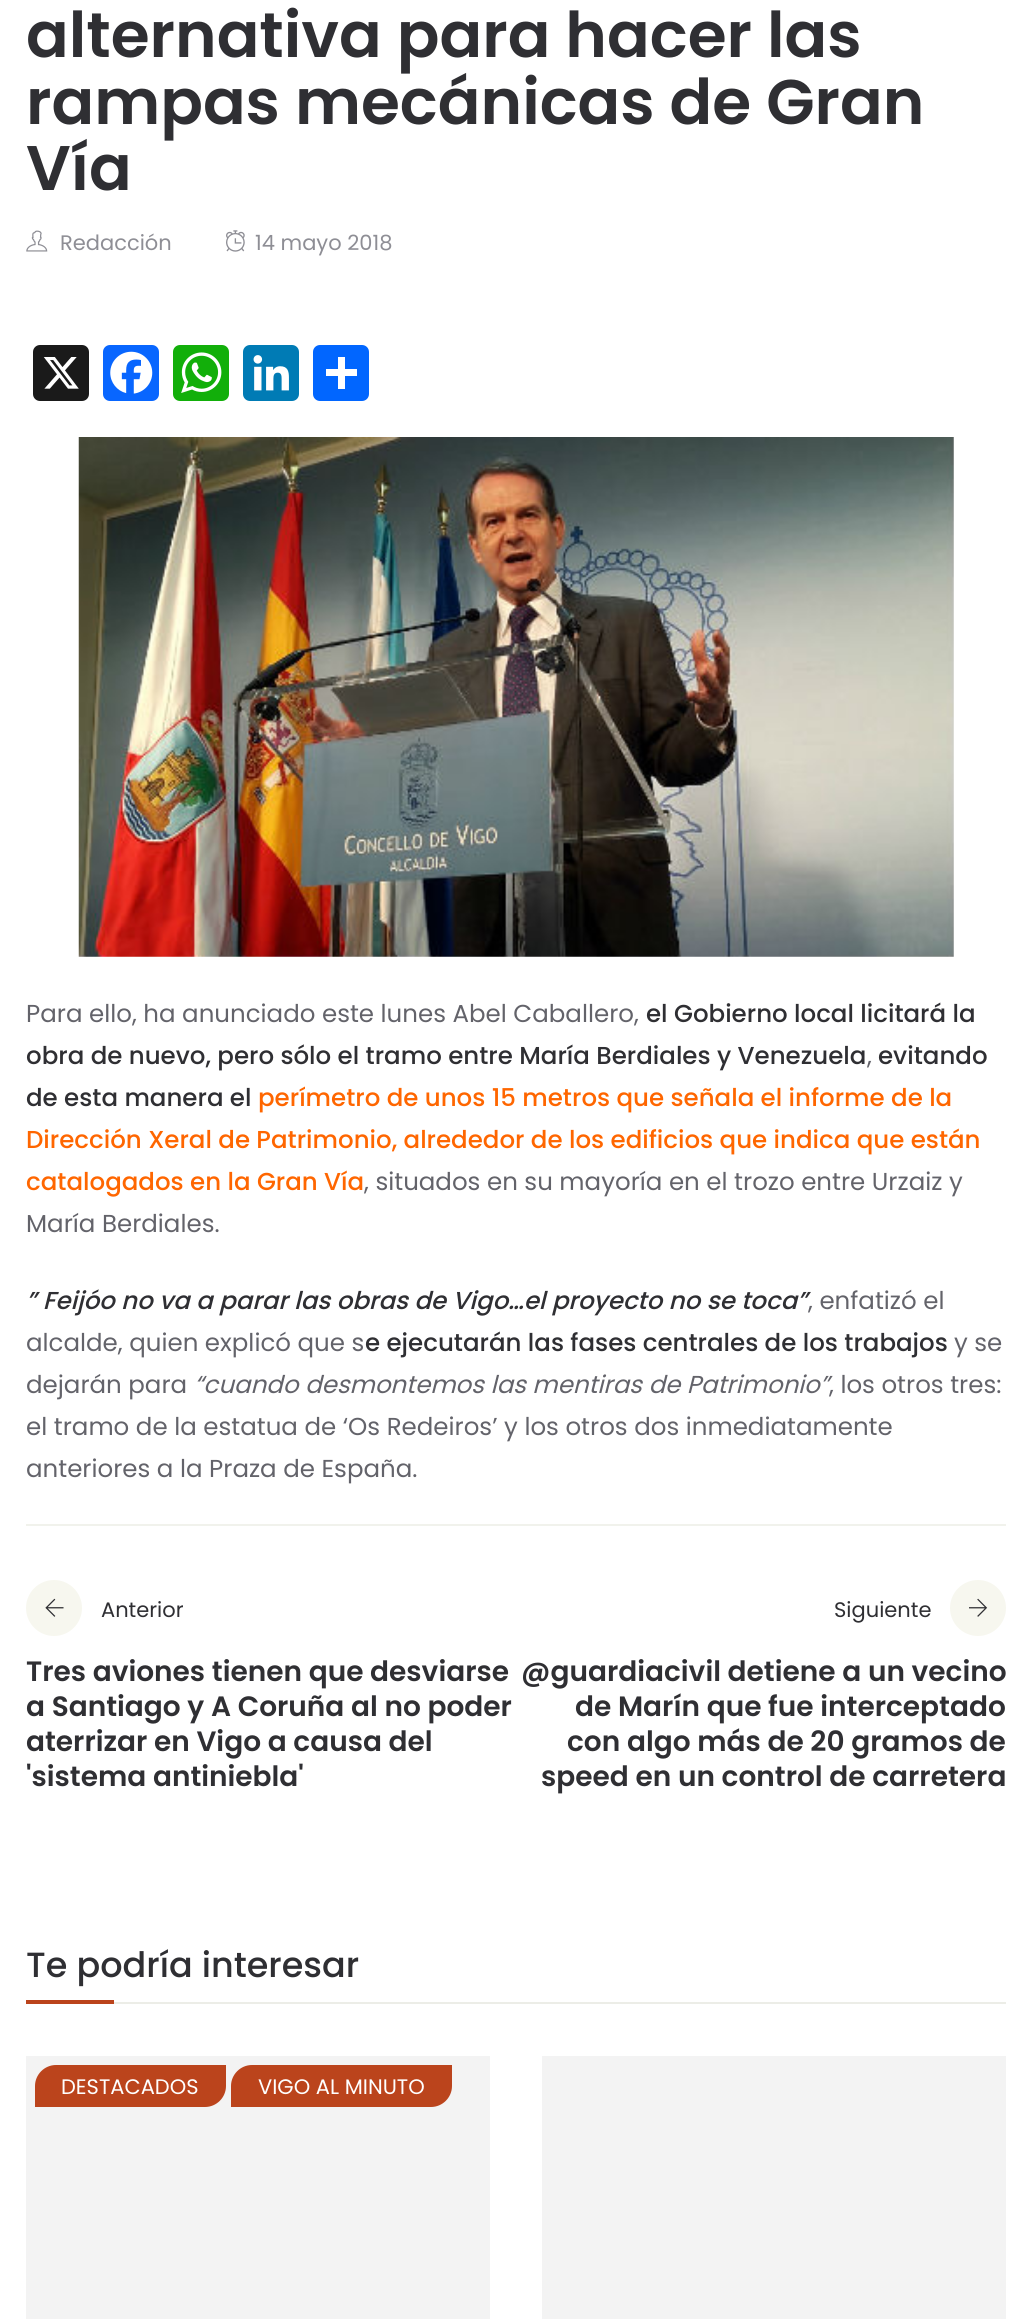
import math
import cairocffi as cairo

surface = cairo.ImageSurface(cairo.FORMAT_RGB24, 1031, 2319)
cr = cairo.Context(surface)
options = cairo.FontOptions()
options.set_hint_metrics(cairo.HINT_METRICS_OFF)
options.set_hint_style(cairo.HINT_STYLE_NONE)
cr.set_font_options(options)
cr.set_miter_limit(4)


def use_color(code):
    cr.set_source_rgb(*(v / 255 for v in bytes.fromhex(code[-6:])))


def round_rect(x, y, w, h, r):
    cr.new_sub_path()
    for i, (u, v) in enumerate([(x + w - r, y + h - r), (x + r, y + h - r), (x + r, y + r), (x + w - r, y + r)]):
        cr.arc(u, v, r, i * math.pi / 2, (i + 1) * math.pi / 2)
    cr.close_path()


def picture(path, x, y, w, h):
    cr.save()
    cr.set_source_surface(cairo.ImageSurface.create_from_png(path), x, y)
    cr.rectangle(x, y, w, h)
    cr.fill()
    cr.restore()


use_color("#ffffff")
cr.paint()
cr.select_font_face("Poppins SemiBold")
cr.set_font_size(63)
use_color("#2f2f33")
cr.move_to(26, 57)
cr.show_text("alternativa para hacer las")
cr.move_to(26, 124)
cr.show_text("rampas mecánicas de Gran")
cr.move_to(26, 190)
cr.show_text("Vía")
picture("img1.png", 26, 230, 22, 22)
cr.select_font_face("Poppins")
cr.set_font_size(21)
use_color("#8e8e95")
cr.move_to(60, 250)
cr.show_text("Redacción")
picture("img2.png", 226, 230, 19, 22)
cr.move_to(255, 250)
cr.show_text("14 mayo 2018")
use_color("#1a1a1a")
round_rect(33, 345, 56, 56, 7)
cr.fill()
picture("img3.png", 43, 357, 36, 32)
use_color("#0866ff")
round_rect(103, 345, 56, 56, 7)
cr.fill()
picture("img4.png", 110, 351, 43, 43)
use_color("#12af0a")
round_rect(173, 345, 56, 56, 7)
cr.fill()
picture("img5.png", 181, 352, 41, 41)
use_color("#007bb5")
round_rect(243, 345, 56, 56, 7)
cr.fill()
picture("img6.png", 253, 355, 36, 36)
use_color("#0166ff")
round_rect(313, 345, 56, 56, 7)
cr.fill()
use_color("#ffffff")
cr.rectangle(338, 357, 7, 32)
cr.fill()
cr.rectangle(326, 369, 31, 7)
cr.fill()
picture("img7.png", 78, 437, 876, 520)
cr.set_font_size(24.5)
use_color("#63636a")
cr.move_to(26, 1022)
cr.show_text("Para ello, ha anunciado este lunes Abel Caballero,")
cr.select_font_face("Poppins Medium")
use_color("#2f2f33")
cr.move_to(646, 1022)
cr.show_text("el Gobierno local licitará la")
cr.move_to(26, 1064)
cr.show_text("obra de nuevo, pero sólo el tramo entre María Berdiales y Venezuela")
cr.select_font_face("Poppins")
use_color("#63636a")
cr.move_to(867, 1064)
cr.show_text(",")
cr.select_font_face("Poppins Medium")
use_color("#2f2f33")
cr.move_to(878, 1064)
cr.show_text("evitando")
cr.move_to(26, 1106)
cr.show_text("de esta manera el")
use_color("#ff6600")
cr.move_to(258, 1106)
cr.show_text("perímetro de unos 15 metros que señala el informe de la")
cr.move_to(26, 1148)
cr.show_text("Dirección Xeral de Patrimonio, alrededor de los edificios que indica que están")
cr.move_to(26, 1190)
cr.show_text("catalogados en la Gran Vía")
cr.select_font_face("Poppins")
use_color("#63636a")
cr.move_to(364, 1190)
cr.show_text(", situados en su mayoría en el trozo entre Urzaiz y")
cr.move_to(26, 1232)
cr.show_text("María Berdiales.")
cr.select_font_face("Poppins Medium", cairo.FONT_SLANT_ITALIC)
use_color("#2f2f33")
cr.move_to(26, 1309)
cr.show_text("” Feijóo no va a parar las obras de Vigo…el proyecto no se toca”")
cr.select_font_face("Poppins")
use_color("#63636a")
cr.move_to(808, 1309)
cr.show_text(", enfatizó el")
cr.move_to(26, 1351)
cr.show_text("alcalde, quien explicó que s")
cr.select_font_face("Poppins Medium")
use_color("#2f2f33")
cr.move_to(365, 1351)
cr.show_text("e ejecutarán las fases centrales de los trabajos")
cr.select_font_face("Poppins")
use_color("#63636a")
cr.move_to(954, 1351)
cr.show_text("y se")
cr.move_to(26, 1393)
cr.show_text("dejarán para")
cr.select_font_face("Poppins", cairo.FONT_SLANT_ITALIC)
cr.move_to(194, 1393)
cr.show_text("“cuando desmontemos las mentiras de Patrimonio”")
cr.select_font_face("Poppins")
cr.move_to(829, 1393)
cr.show_text(", los otros tres:")
cr.move_to(26, 1435)
cr.show_text("el tramo de la estatua de ‘Os Redeiros’ y los otros dos inmediatamente")
cr.move_to(26, 1477)
cr.show_text("anteriores a la Praza de España.")
use_color("#f1f2ec")
cr.rectangle(26, 1524, 980, 2)
cr.fill()
use_color("#f7f7ef")
cr.arc(54, 1608, 28, 0, 2 * math.pi)
cr.fill()
picture("img8.png", 45, 1598, 19, 19)
cr.set_font_size(21)
use_color("#2f2f33")
cr.move_to(101, 1617)
cr.show_text("Anterior")
cr.select_font_face("Poppins SemiBold")
cr.set_font_size(28)
cr.move_to(26, 1681)
cr.show_text("Tres aviones tienen que desviarse")
cr.move_to(26, 1716)
cr.show_text("a Santiago y A Coruña al no poder")
cr.move_to(26, 1751)
cr.show_text("aterrizar en Vigo a causa del")
cr.move_to(26, 1786)
cr.show_text("'sistema antiniebla'")
use_color("#f7f7ef")
cr.new_path()
cr.arc(978, 1608, 28, 0, 2 * math.pi)
cr.fill()
cr.select_font_face("Poppins")
cr.set_font_size(21)
use_color("#2f2f33")
cr.move_to(834, 1617)
cr.show_text("Siguiente")
picture("img9.png", 969, 1598, 19, 19)
cr.select_font_face("Poppins SemiBold")
cr.set_font_size(28)
cr.move_to(521, 1681)
cr.show_text("@guardiacivil detiene a un vecino")
cr.move_to(575, 1716)
cr.show_text("de Marín que fue interceptado")
cr.move_to(567, 1751)
cr.show_text("con algo más de 20 gramos de")
cr.move_to(541, 1786)
cr.show_text("speed en un control de carretera")
use_color("#ecede7")
cr.rectangle(114, 2002, 892, 2)
cr.fill()
cr.select_font_face("Poppins Medium")
cr.set_font_size(35)
use_color("#2f2f33")
cr.move_to(26, 1977)
cr.show_text("Te podría interesar")
use_color("#bb441c")
cr.rectangle(26, 2000, 88, 4)
cr.fill()
use_color("#f3f3f3")
cr.rectangle(26, 2056, 464, 263)
cr.fill()
use_color("#bb441c")
cr.new_path()
cr.move_to(56, 2065)
cr.line_to(226, 2065)
cr.line_to(226, 2086)
cr.curve_to(226, 2097.5, 216.5, 2107, 205, 2107)
cr.line_to(35, 2107)
cr.line_to(35, 2086)
cr.curve_to(35, 2074.5, 44.5, 2065, 56, 2065)
cr.close_path()
cr.fill()
cr.select_font_face("Poppins")
cr.set_font_size(21)
use_color("#ffffff")
cr.move_to(61, 2094)
cr.show_text("DESTACADOS")
use_color("#bb441c")
cr.new_path()
cr.move_to(252, 2065)
cr.line_to(452, 2065)
cr.line_to(452, 2086)
cr.curve_to(452, 2097.5, 442.5, 2107, 431, 2107)
cr.line_to(231, 2107)
cr.line_to(231, 2086)
cr.curve_to(231, 2074.5, 240.5, 2065, 252, 2065)
cr.close_path()
cr.fill()
use_color("#ffffff")
cr.move_to(258, 2094)
cr.show_text("VIGO AL MINUTO")
use_color("#f3f3f3")
cr.rectangle(542, 2056, 464, 263)
cr.fill()
surface.write_to_png("result.png")
